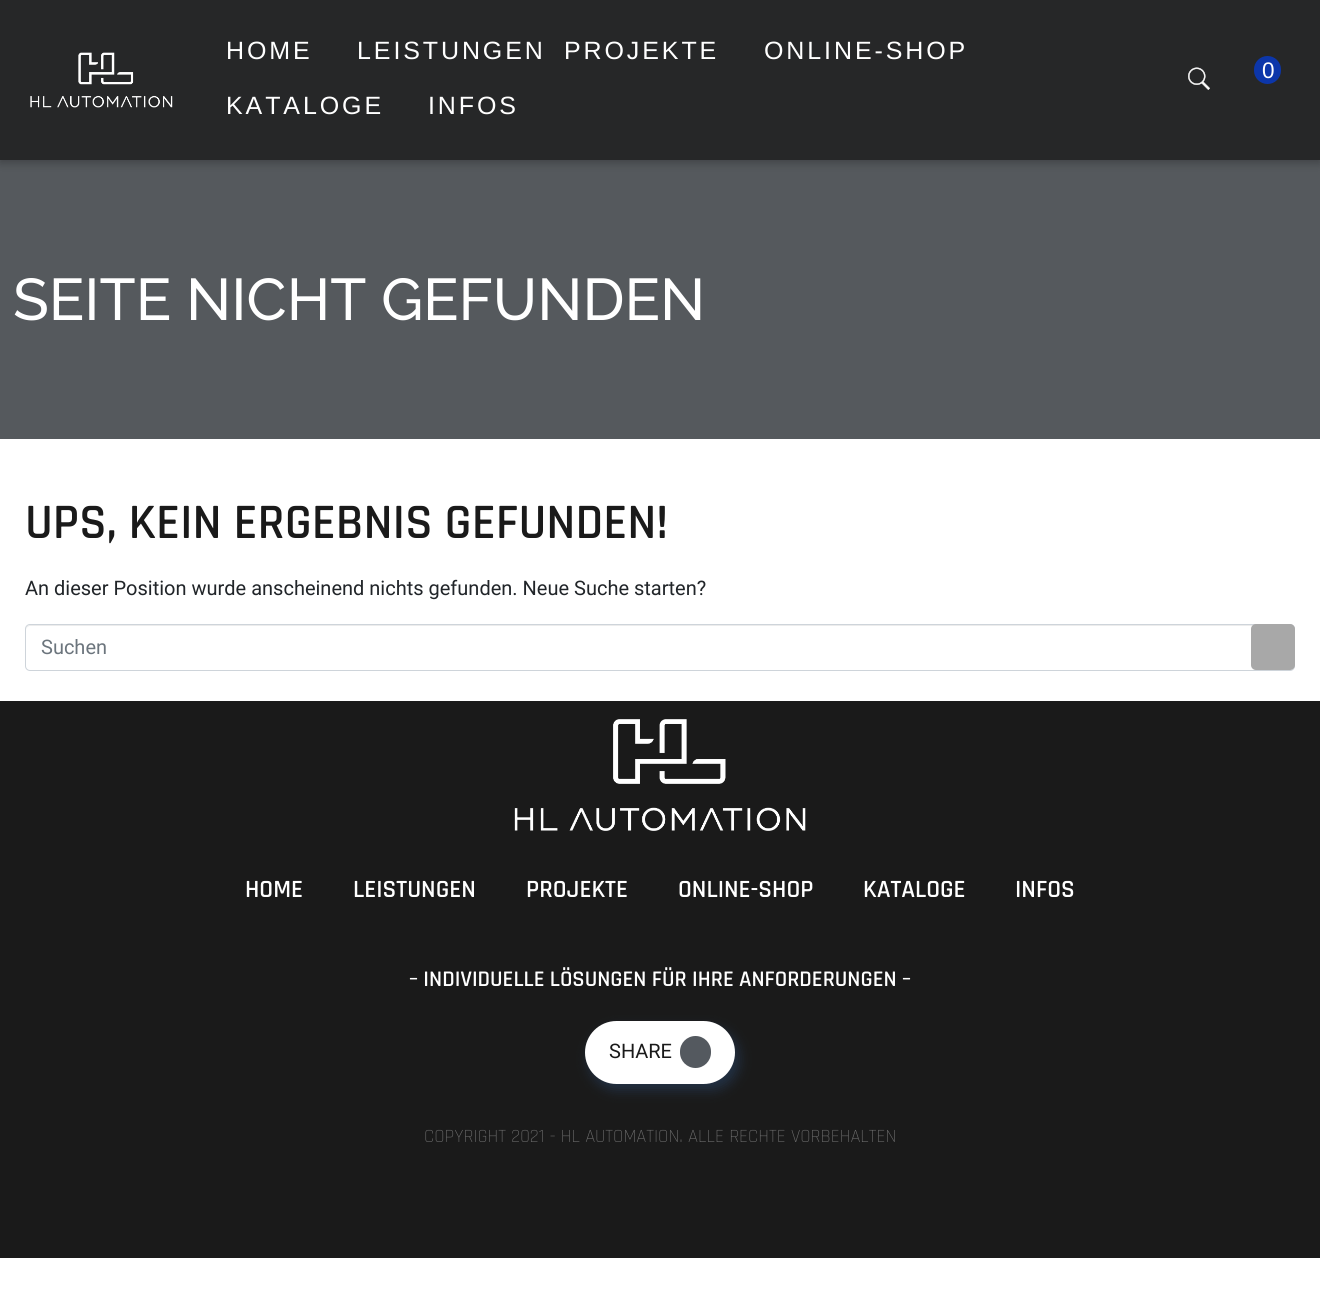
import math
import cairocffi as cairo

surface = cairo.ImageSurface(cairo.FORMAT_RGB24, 1320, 1304)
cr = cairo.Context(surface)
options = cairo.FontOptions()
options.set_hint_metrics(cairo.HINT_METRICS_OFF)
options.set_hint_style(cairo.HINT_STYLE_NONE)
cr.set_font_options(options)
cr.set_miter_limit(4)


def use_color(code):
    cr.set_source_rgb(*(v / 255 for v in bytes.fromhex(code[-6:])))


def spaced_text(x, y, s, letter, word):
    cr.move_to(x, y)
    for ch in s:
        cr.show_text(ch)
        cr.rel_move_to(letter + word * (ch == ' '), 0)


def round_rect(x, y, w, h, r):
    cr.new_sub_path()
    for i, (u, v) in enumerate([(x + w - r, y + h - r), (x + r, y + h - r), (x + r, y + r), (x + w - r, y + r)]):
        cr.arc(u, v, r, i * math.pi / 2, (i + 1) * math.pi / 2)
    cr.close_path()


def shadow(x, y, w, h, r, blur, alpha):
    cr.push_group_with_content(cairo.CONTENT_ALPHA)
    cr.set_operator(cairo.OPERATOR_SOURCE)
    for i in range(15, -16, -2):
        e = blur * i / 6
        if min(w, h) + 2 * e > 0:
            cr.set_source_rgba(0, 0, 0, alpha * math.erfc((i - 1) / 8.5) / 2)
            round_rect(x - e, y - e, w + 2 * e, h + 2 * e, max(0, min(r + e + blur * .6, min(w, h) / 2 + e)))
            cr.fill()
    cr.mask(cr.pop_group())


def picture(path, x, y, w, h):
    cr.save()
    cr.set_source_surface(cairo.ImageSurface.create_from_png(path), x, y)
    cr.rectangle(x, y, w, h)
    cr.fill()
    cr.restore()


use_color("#ffffff")
cr.paint()
use_color("#55595d")
cr.rectangle(0, 160, 1320, 279)
cr.fill()
use_color("#000000")
shadow(0, 3, 1320, 160, 0, 4.5, 0.25)
use_color("#262728")
cr.rectangle(0, 0, 1320, 160)
cr.fill()
picture("img1.png", 30, 52, 143, 56)
cr.select_font_face("Liberation Sans")
cr.set_font_size(25)
use_color("#ffffff")
spaced_text(226, 59, "HOME", 2.9, 0)
spaced_text(357, 59, "LEISTUNGEN", 2.9, 0)
spaced_text(564, 59, "PROJEKTE", 2.9, 0)
spaced_text(764, 59, "ONLINE-SHOP", 2.9, 0)
spaced_text(226, 114, "KATALOGE", 2.9, 0)
spaced_text(428, 114, "INFOS", 2.9, 0)
picture("img2.png", 1188, 67, 22, 23)
use_color("#0c36aa")
round_rect(1254, 56, 27, 28, 13.5)
cr.fill()
cr.set_font_size(22.5)
use_color("#ffffff")
cr.move_to(1262, 78)
cr.show_text("0")
cr.select_font_face("Raleway Medium")
cr.set_font_size(58.75)
cr.move_to(13, 320)
cr.show_text("SEITE NICHT GEFUNDEN")
cr.select_font_face("Rajdhani SemiBold")
cr.set_font_size(50)
use_color("#1a1a1a")
cr.move_to(25, 538)
cr.show_text("UPS, KEIN ERGEBNIS GEFUNDEN!")
cr.select_font_face("Roboto")
cr.set_font_size(20)
use_color("#212529")
cr.move_to(25, 595)
cr.show_text("An dieser Position wurde anscheinend nichts gefunden. Neue Suche starten?")
use_color("#ececec")
cr.new_path()
cr.move_to(30, 626)
cr.line_to(1290, 626)
cr.curve_to(1292, 626, 1294, 628, 1294, 630)
cr.line_to(1294, 629)
cr.curve_to(1294, 627, 1292, 625, 1290, 625)
cr.line_to(30, 625)
cr.curve_to(28, 625, 26, 627, 26, 629)
cr.line_to(26, 630)
cr.curve_to(26, 628, 28, 626, 30, 626)
cr.close_path()
cr.fill()
round_rect(25.5, 624.5, 1269, 46, 4.5)
use_color("#ced4da")
cr.set_line_width(1)
cr.stroke()
use_color("#6c757d")
cr.move_to(41, 654)
cr.show_text("Suchen")
use_color("#a8a8a8")
round_rect(1251, 624, 44, 46, 5)
cr.fill()
use_color("#1a1a1a")
cr.rectangle(0, 701, 1320, 557)
cr.fill()
picture("img3.png", 514, 719, 292, 112)
cr.select_font_face("Rajdhani SemiBold")
cr.set_font_size(25)
use_color("#ffffff")
cr.move_to(245, 897)
cr.show_text("HOME")
cr.move_to(353, 897)
cr.show_text("LEISTUNGEN")
cr.move_to(526, 897)
cr.show_text("PROJEKTE")
cr.move_to(678, 897)
cr.show_text("ONLINE-SHOP")
cr.move_to(863, 897)
cr.show_text("KATALOGE")
cr.move_to(1015, 897)
cr.show_text("INFOS")
cr.set_font_size(22.5)
cr.move_to(409, 986)
cr.show_text("– INDIVIDUELLE LÖSUNGEN FÜR IHRE ANFORDERUNGEN –")
use_color("#2a4870")
shadow(589, 1028, 150, 62, 31, 6, 0.5)
use_color("#ffffff")
round_rect(585, 1021, 150, 63, 31.5)
cr.fill()
cr.select_font_face("Roboto")
cr.set_font_size(20)
use_color("#1a1a1a")
cr.move_to(609, 1058)
cr.show_text("SHARE")
use_color("#54595f")
round_rect(680, 1036, 31, 32, 15.5)
cr.fill()
cr.select_font_face("Rajdhani Light")
cr.set_font_size(18.75)
use_color("#737373")
cr.move_to(424, 1142)
cr.show_text("COPYRIGHT 2021 - HL AUTOMATION. ALLE RECHTE VORBEHALTEN")
surface.write_to_png("result.png")
